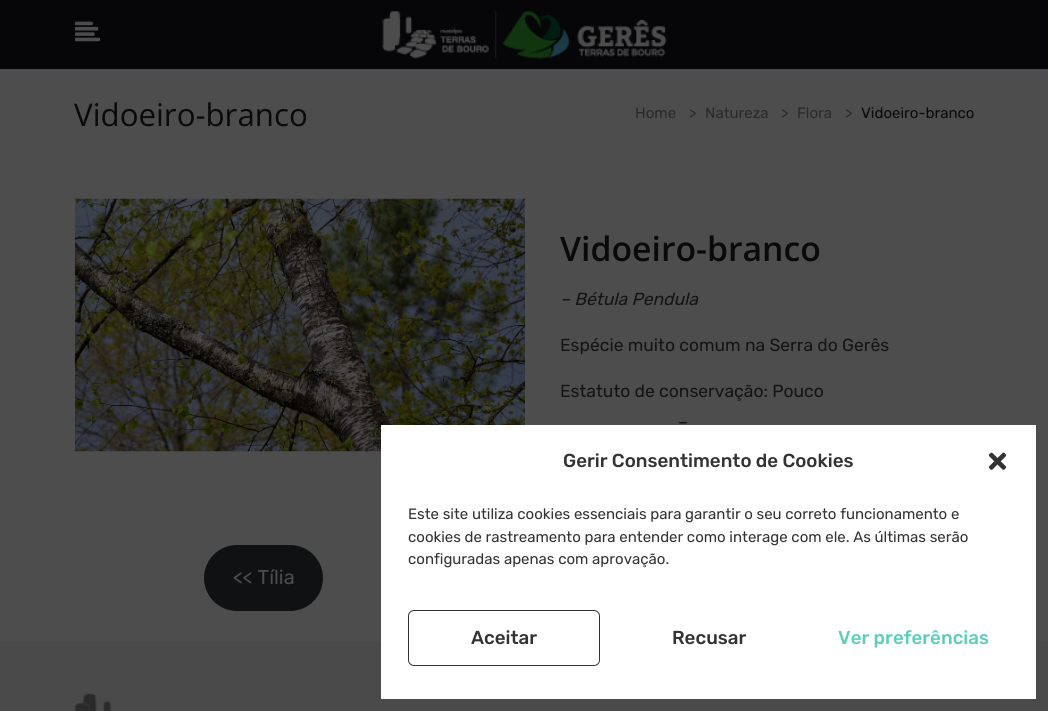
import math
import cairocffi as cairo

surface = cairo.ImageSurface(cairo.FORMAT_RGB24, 1048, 711)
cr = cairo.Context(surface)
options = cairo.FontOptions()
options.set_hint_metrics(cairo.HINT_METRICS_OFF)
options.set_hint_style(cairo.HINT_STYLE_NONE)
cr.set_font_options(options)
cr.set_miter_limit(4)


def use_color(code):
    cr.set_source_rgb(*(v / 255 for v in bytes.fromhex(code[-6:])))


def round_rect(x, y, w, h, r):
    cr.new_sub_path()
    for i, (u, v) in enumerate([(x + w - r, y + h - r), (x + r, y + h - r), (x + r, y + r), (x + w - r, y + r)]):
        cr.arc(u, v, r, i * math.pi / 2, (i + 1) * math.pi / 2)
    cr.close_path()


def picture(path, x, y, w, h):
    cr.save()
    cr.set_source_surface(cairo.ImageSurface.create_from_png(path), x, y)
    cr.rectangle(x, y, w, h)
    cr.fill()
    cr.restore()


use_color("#4d4d4d")
cr.paint()
use_color("#060608")
cr.rectangle(0, 0, 1048, 69)
cr.fill()
picture("img1.png", 75, 21, 25, 21)
picture("img2.png", 382, 11, 285, 48)
cr.select_font_face("Open Sans")
cr.set_font_size(31.25)
use_color("#0a0a0a")
cr.move_to(74, 126)
cr.show_text("Vidoeiro-branco")
cr.select_font_face("Rubik")
cr.set_font_size(15)
use_color("#2a2a2a")
cr.move_to(635, 118)
cr.show_text("Home")
cr.move_to(689, 118)
cr.show_text(">")
cr.move_to(705, 118)
cr.show_text("Natureza")
cr.move_to(781, 118)
cr.show_text(">")
cr.move_to(797, 118)
cr.show_text("Flora")
cr.move_to(845, 118)
cr.show_text(">")
use_color("#0a0a0a")
cr.move_to(861, 118)
cr.show_text("Vidoeiro-branco")
picture("img3.png", 75, 198, 450, 254)
cr.select_font_face("Open Sans SemiBold")
cr.set_font_size(33.75)
cr.move_to(560, 261)
cr.show_text("Vidoeiro-branco")
cr.select_font_face("Rubik", cairo.FONT_SLANT_ITALIC)
cr.set_font_size(17.5)
use_color("#141414")
cr.move_to(560, 305)
cr.show_text("– Bétula Pendula")
cr.select_font_face("Rubik")
cr.move_to(560, 351)
cr.show_text("Espécie muito comum na Serra do Gerês")
cr.move_to(560, 397)
cr.show_text("Estatuto de conservação: Pouco")
cr.move_to(678, 428)
cr.show_text("–")
use_color("#0f1112")
round_rect(204, 545, 119, 66, 33)
cr.fill()
cr.set_font_size(20)
use_color("#4d4d4d")
cr.move_to(233, 584)
cr.show_text("<< Tília")
use_color("#4a4a4a")
cr.rectangle(0, 641, 1048, 70)
cr.fill()
picture("img4.png", 75, 693, 36, 18)
use_color("#ffffff")
cr.rectangle(381, 425, 655, 274)
cr.fill()
cr.select_font_face("Rubik Medium")
cr.set_font_size(18.75)
use_color("#333333")
cr.move_to(563, 467)
cr.show_text("Gerir Consentimento de Cookies")
picture("img5.png", 988, 452, 19, 18)
cr.select_font_face("Rubik")
cr.set_font_size(15)
cr.move_to(408, 519)
cr.show_text("Este site utiliza cookies essenciais para garantir o seu correto funcionamento e")
cr.move_to(408, 542)
cr.show_text("cookies de rastreamento para entender como interage com ele. As últimas serão")
cr.move_to(408, 564)
cr.show_text("configuradas apenas com aprovação.")
round_rect(408.5, 610.5, 191, 55, 5.5)
cr.set_line_width(1)
cr.stroke()
cr.select_font_face("Rubik Medium")
cr.set_font_size(18.75)
cr.move_to(471, 644)
cr.show_text("Aceitar")
cr.move_to(672, 644)
cr.show_text("Recusar")
use_color("#5ccebb")
cr.move_to(838, 644)
cr.show_text("Ver preferências")
surface.write_to_png("result.png")
